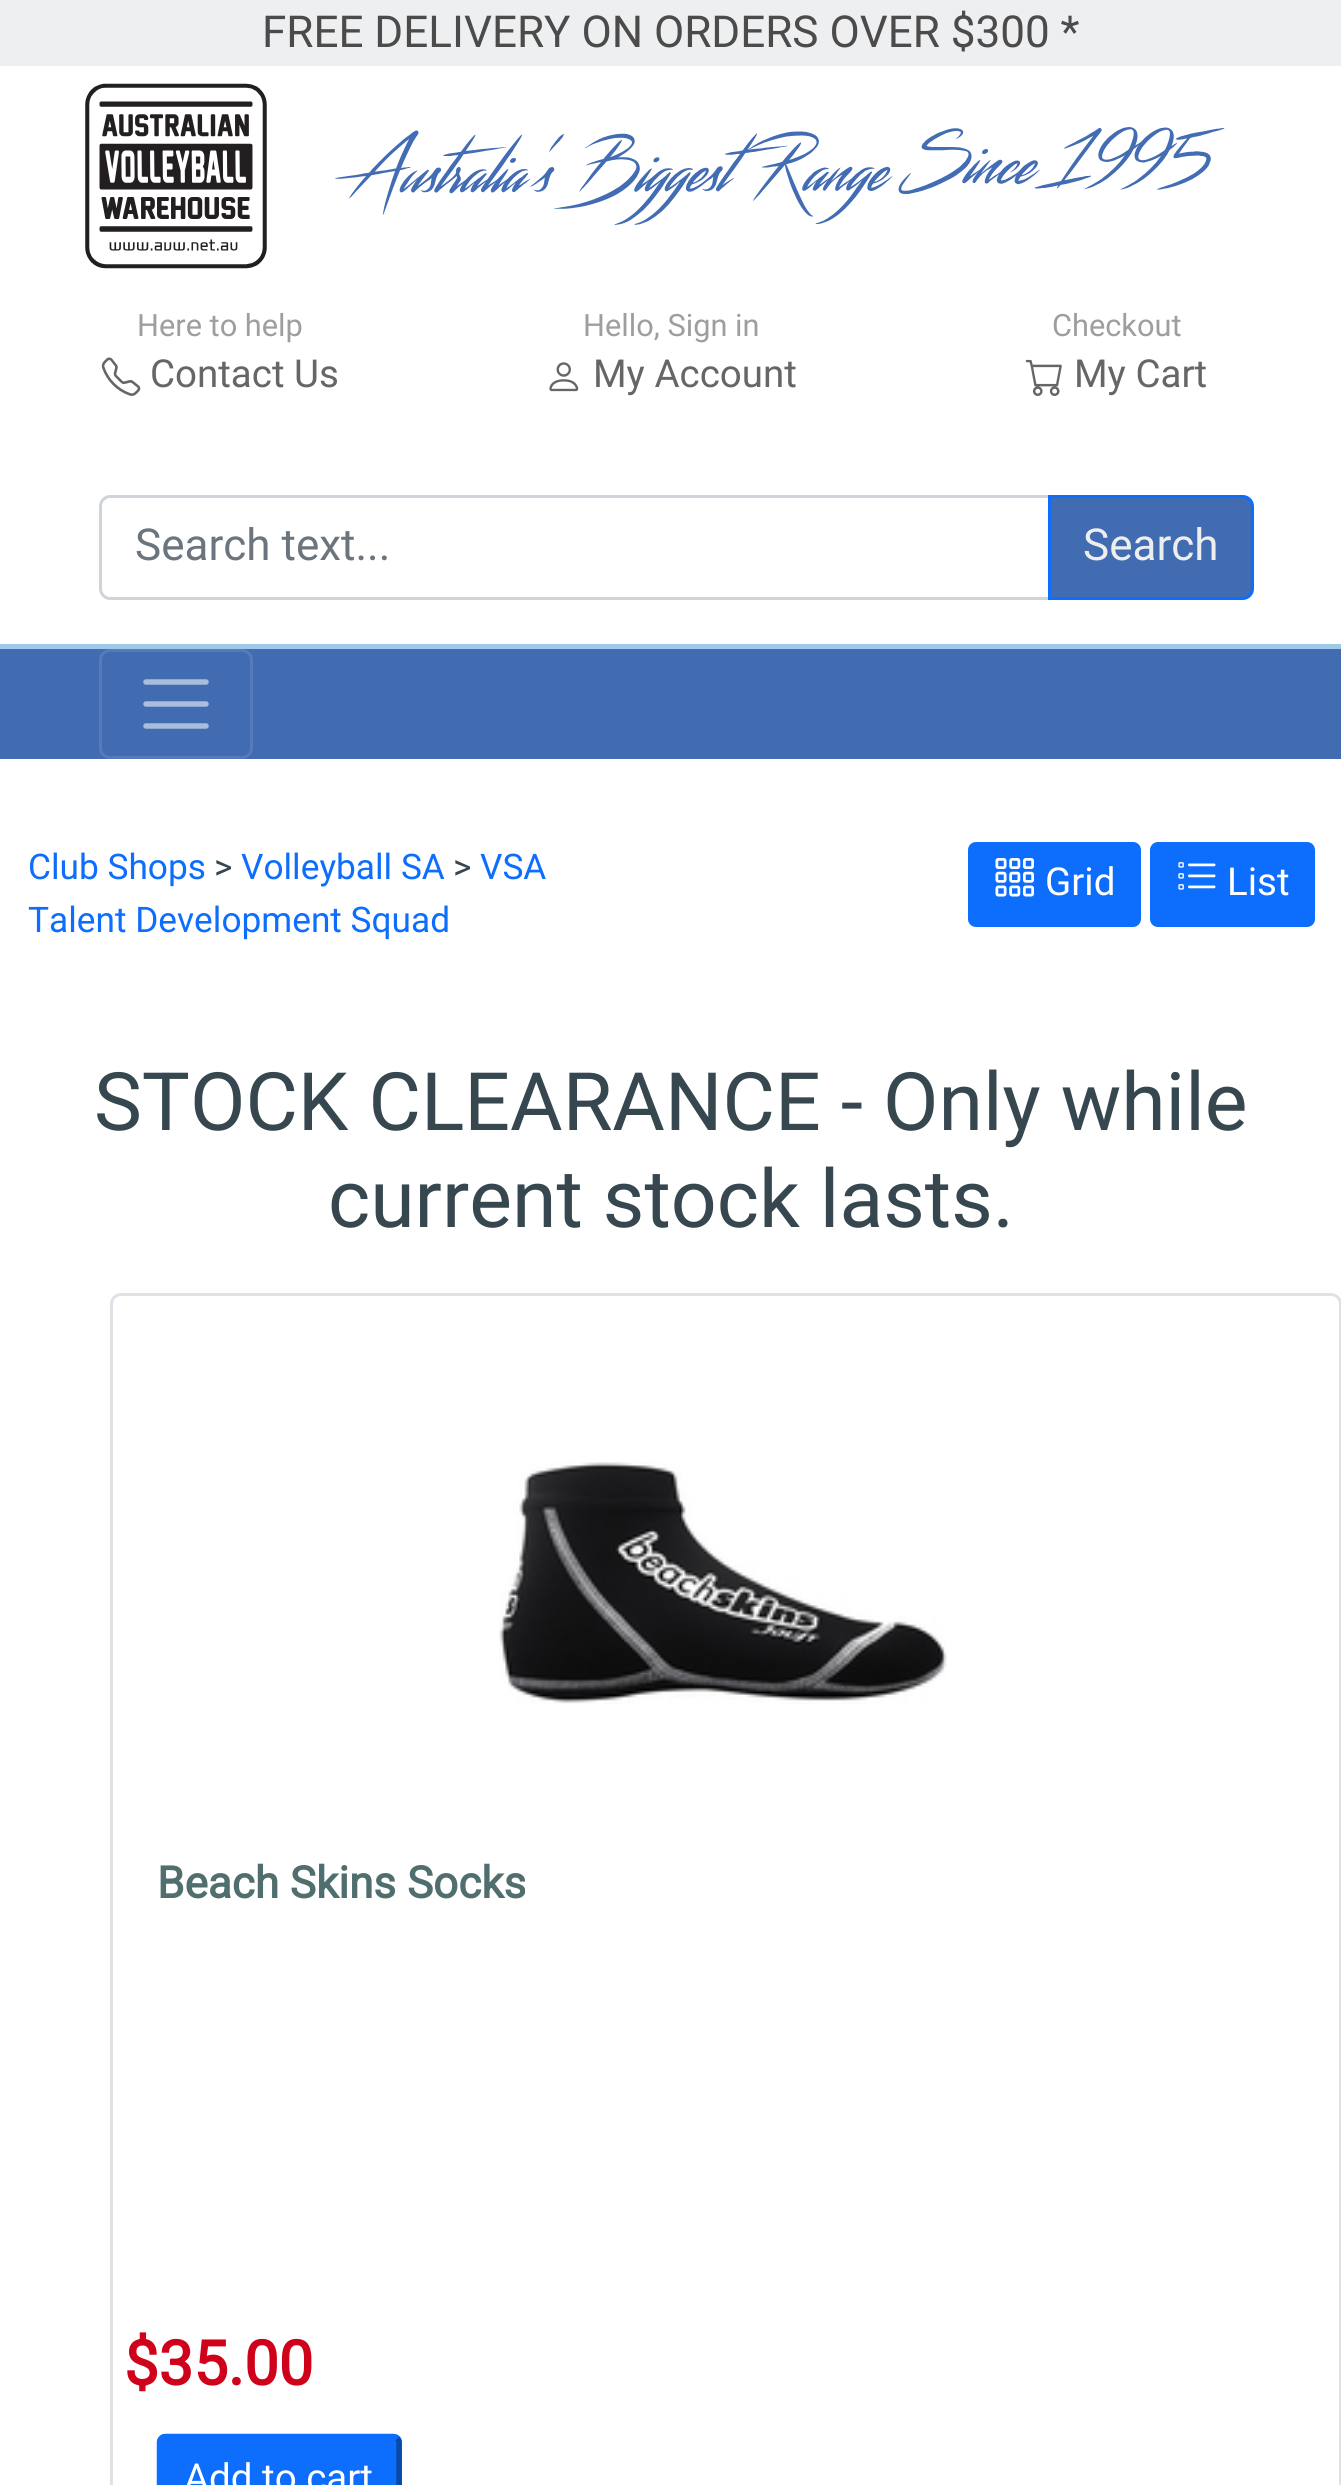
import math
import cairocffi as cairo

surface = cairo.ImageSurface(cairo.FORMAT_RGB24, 1341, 2485)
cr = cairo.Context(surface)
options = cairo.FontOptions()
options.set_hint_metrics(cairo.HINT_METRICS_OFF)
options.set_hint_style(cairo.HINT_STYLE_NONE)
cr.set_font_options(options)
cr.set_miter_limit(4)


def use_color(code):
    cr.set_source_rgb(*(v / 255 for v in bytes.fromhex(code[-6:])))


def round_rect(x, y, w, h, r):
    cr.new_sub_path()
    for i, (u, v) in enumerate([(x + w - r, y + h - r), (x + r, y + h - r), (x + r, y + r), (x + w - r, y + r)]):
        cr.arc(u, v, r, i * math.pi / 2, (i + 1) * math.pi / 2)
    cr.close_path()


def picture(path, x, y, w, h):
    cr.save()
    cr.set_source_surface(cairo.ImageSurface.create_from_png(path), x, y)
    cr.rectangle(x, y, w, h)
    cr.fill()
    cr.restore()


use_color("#ffffff")
cr.paint()
use_color("#eeeff0")
cr.rectangle(0, 0, 1341, 66)
cr.fill()
cr.select_font_face("Roboto")
cr.set_font_size(44)
use_color("#4c4b4b")
cr.move_to(262, 47)
cr.show_text("FREE DELIVERY ON ORDERS OVER $300 *")
picture("img1.png", 85, 83, 182, 186)
picture("img2.png", 335, 127, 890, 98)
cr.set_font_size(30.75)
use_color("#9e9e9e")
cr.move_to(137, 336)
cr.show_text("Here to help")
picture("img3.png", 101, 357, 40, 39)
cr.set_font_size(38.5)
use_color("#666666")
cr.move_to(150, 387)
cr.show_text("Contact Us")
cr.set_font_size(30.75)
use_color("#9e9e9e")
cr.move_to(583, 336)
cr.show_text("Hello, Sign in")
picture("img4.png", 549, 362, 30, 30)
cr.set_font_size(38.5)
use_color("#666666")
cr.move_to(593, 387)
cr.show_text("My Account")
cr.set_font_size(30.75)
use_color("#9e9e9e")
cr.move_to(1052, 336)
cr.show_text("Checkout")
picture("img5.png", 1025, 359, 37, 37)
cr.set_font_size(38.5)
use_color("#666666")
cr.move_to(1074, 387)
cr.show_text("My Cart")
cr.new_path()
cr.move_to(110, 496.5)
cr.line_to(1049.5, 496.5)
cr.line_to(1049.5, 598.5)
cr.line_to(110, 598.5)
cr.curve_to(105, 598.5, 100.5, 594, 100.5, 589)
cr.line_to(100.5, 506)
cr.curve_to(100.5, 501, 105, 496.5, 110, 496.5)
cr.close_path()
use_color("#ced4da")
cr.set_line_width(3)
cr.stroke()
cr.set_font_size(44)
use_color("#6c757d")
cr.move_to(135, 560)
cr.show_text("Search text...")
use_color("#426cb2")
cr.new_path()
cr.move_to(1049.5, 496.5)
cr.line_to(1243, 496.5)
cr.curve_to(1248, 496.5, 1252.5, 501, 1252.5, 506)
cr.line_to(1252.5, 589)
cr.curve_to(1252.5, 594, 1248, 598.5, 1243, 598.5)
cr.line_to(1049.5, 598.5)
cr.close_path()
cr.fill_preserve()
use_color("#0d6efd")
cr.stroke()
use_color("#eeeeee")
cr.move_to(1083, 560)
cr.show_text("Search")
use_color("#9fc9eb")
cr.rectangle(0, 644, 1341, 5)
cr.fill()
use_color("#426cb2")
cr.rectangle(0, 649, 1341, 110)
cr.fill()
round_rect(100.5, 650.5, 151, 107, 9.5)
use_color("#557bba")
cr.stroke()
cr.new_path()
cr.move_to(146, 682)
cr.line_to(206, 682)
cr.move_to(146, 704)
cr.line_to(206, 704)
cr.move_to(146, 726)
cr.line_to(206, 726)
use_color("#aabddc")
cr.set_line_width(5.5)
cr.set_line_cap(cairo.LINE_CAP_ROUND)
cr.stroke()
cr.set_font_size(35.25)
use_color("#0d6efd")
cr.move_to(28, 879)
cr.show_text("Club Shops")
use_color("#37474f")
cr.move_to(214, 879)
cr.show_text(">")
use_color("#0d6efd")
cr.move_to(241, 879)
cr.show_text("Volleyball SA")
use_color("#37474f")
cr.move_to(453, 879)
cr.show_text(">")
use_color("#0d6efd")
cr.move_to(480, 879)
cr.show_text("VSA")
cr.move_to(28, 932)
cr.show_text("Talent Development Squad")
round_rect(969.5, 843.5, 170, 82, 6.5)
cr.fill_preserve()
cr.set_line_width(3)
cr.set_line_cap(cairo.LINE_CAP_BUTT)
cr.stroke()
picture("img6.png", 995, 858, 39, 39)
cr.set_font_size(38.5)
use_color("#ffffff")
cr.move_to(1045, 895)
cr.show_text("Grid")
use_color("#0d6efd")
round_rect(1151.5, 843.5, 162, 82, 6.5)
cr.fill_preserve()
cr.stroke()
picture("img7.png", 1178, 862, 38, 28)
use_color("#ffffff")
cr.move_to(1227, 895)
cr.show_text("List")
cr.set_font_size(80.6)
use_color("#37474f")
cr.move_to(94, 1130)
cr.show_text("STOCK CLEARANCE - Only while")
cr.move_to(328, 1227)
cr.show_text("current stock lasts.")
round_rect(111.5, 1294.5, 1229, 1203, 9.5)
use_color("#dee2e6")
cr.stroke()
picture("img8.png", 499, 1462, 448, 242)
cr.select_font_face("Roboto", cairo.FONT_SLANT_NORMAL, cairo.FONT_WEIGHT_BOLD)
cr.set_font_size(44)
use_color("#506e6e")
cr.move_to(157, 1898)
cr.show_text("Beach Skins Socks")
cr.set_font_size(61.5)
use_color("#d0011b")
cr.move_to(124, 2385)
cr.show_text("$35.00")
use_color("#0d6efd")
round_rect(157, 2434, 245, 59, 8)
cr.fill()
cr.new_path()
cr.move_to(397, 2438.5)
cr.curve_to(398, 2439.5, 399, 2441, 399, 2442.5)
cr.line_to(399, 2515.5)
cr.curve_to(399, 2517.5, 398, 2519, 397, 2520)
cr.curve_to(396, 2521, 394.5, 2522, 392.5, 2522)
cr.line_to(165.5, 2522)
cr.curve_to(164, 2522, 162.5, 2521, 161.5, 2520)
use_color("#0949a9")
cr.set_line_width(5.5)
cr.stroke()
cr.new_path()
cr.move_to(161.5, 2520)
cr.curve_to(160, 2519, 159.5, 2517.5, 159.5, 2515.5)
cr.line_to(159.5, 2442.5)
cr.curve_to(159.5, 2441, 160, 2439.5, 161.5, 2438.5)
cr.curve_to(162.5, 2437, 164, 2436.5, 165.5, 2436.5)
cr.line_to(392.5, 2436.5)
cr.curve_to(394.5, 2436.5, 396, 2437, 397, 2438.5)
use_color("#0d6efd")
cr.stroke()
cr.select_font_face("Roboto")
cr.set_font_size(38.5)
use_color("#ffffff")
cr.move_to(184, 2491)
cr.show_text("Add to cart")
surface.write_to_png("result.png")
